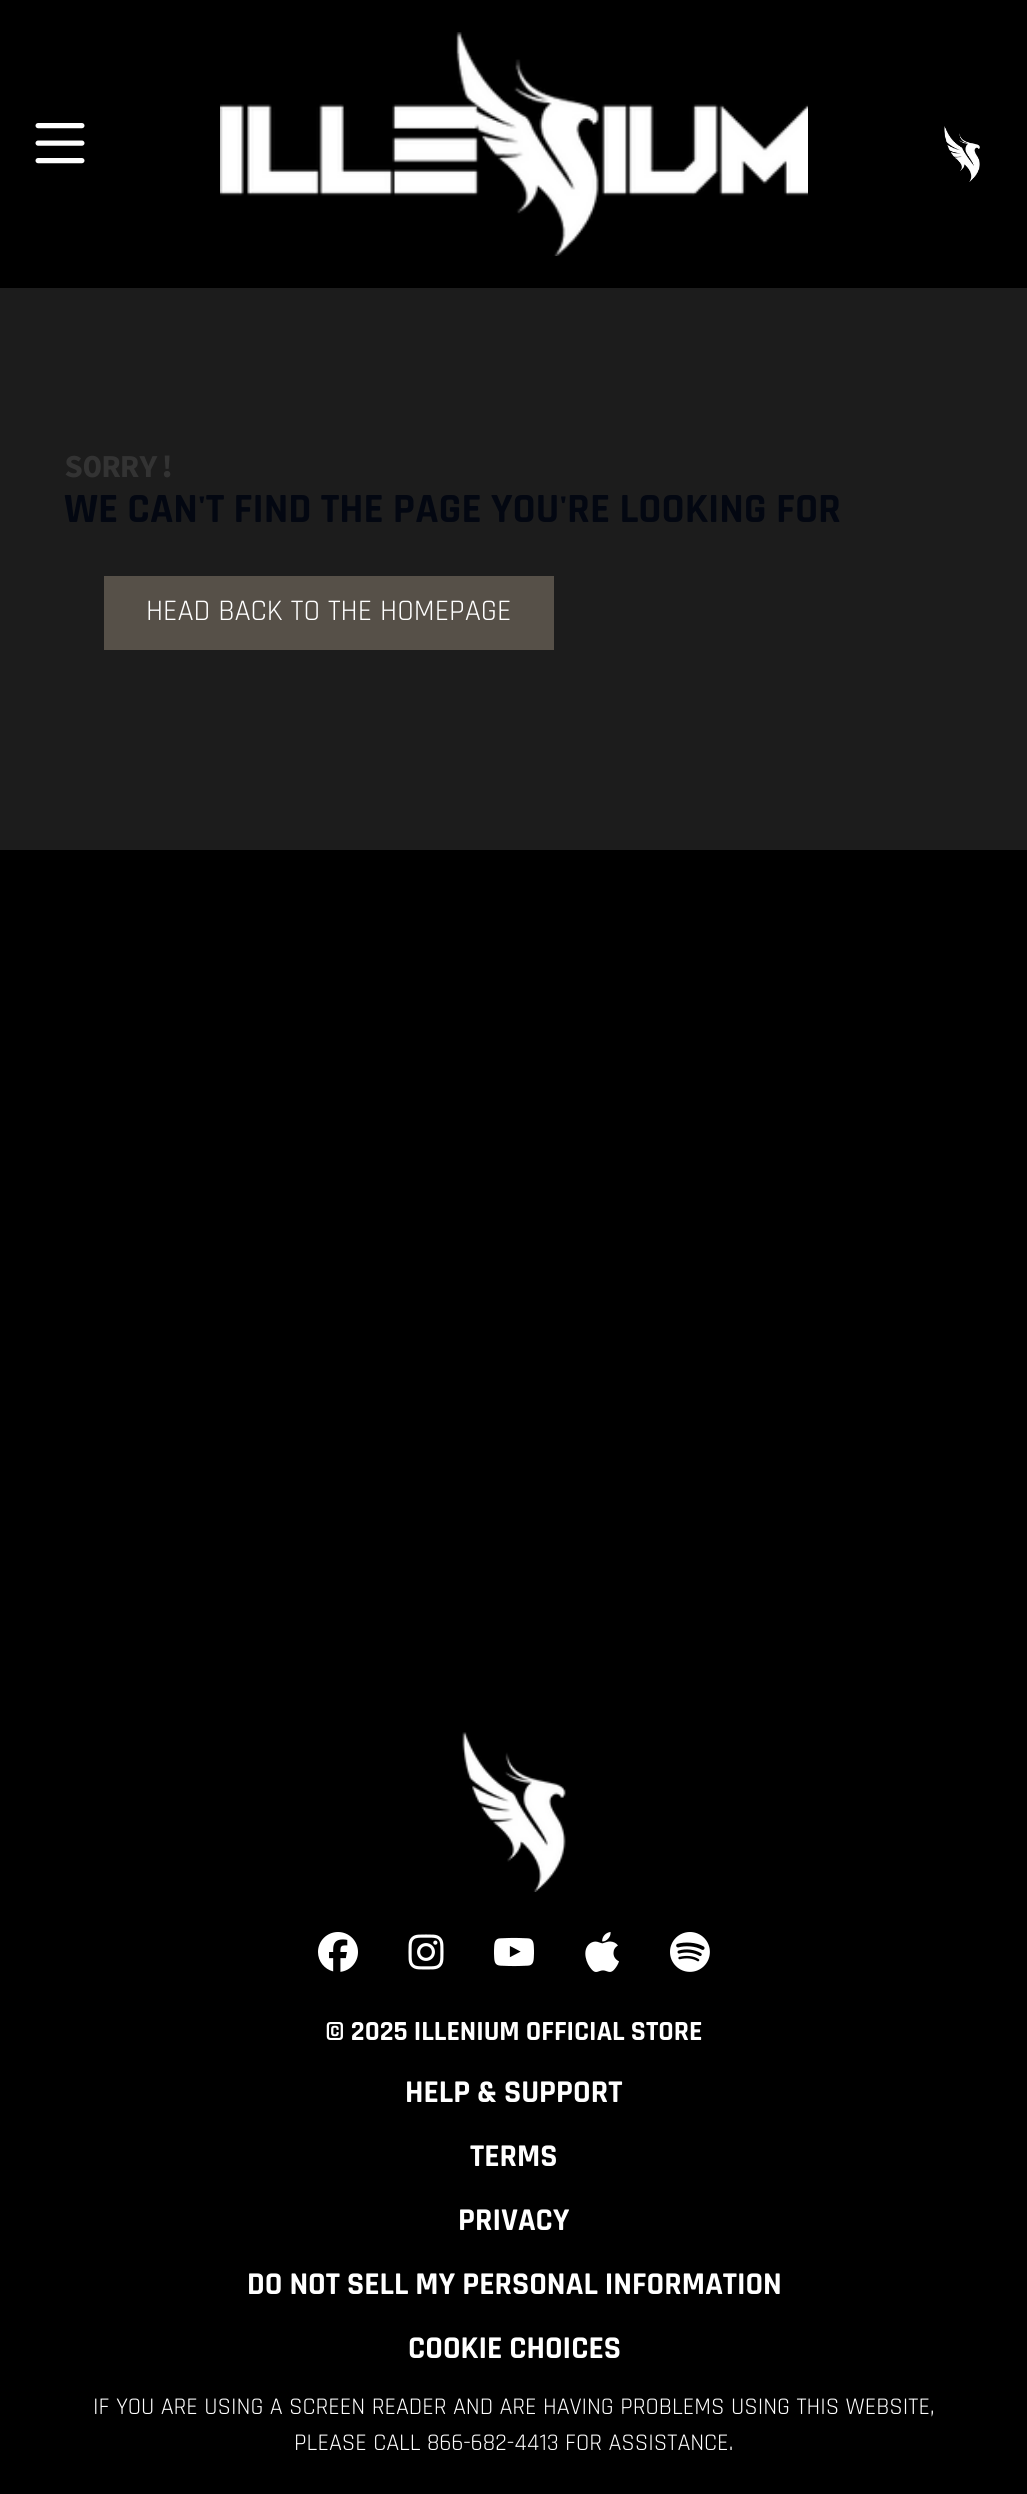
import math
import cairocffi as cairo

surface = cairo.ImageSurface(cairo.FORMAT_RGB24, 1027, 2494)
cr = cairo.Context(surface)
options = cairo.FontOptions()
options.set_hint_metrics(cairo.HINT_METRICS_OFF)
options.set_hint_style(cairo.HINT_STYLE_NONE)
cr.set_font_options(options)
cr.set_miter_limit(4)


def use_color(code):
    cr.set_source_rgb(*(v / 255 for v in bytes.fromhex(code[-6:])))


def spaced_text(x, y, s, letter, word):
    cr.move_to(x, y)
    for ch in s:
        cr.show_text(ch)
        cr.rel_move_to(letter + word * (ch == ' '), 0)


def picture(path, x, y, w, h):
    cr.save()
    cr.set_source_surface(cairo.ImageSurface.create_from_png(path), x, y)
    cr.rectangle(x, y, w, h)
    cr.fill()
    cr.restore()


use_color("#000000")
cr.paint()
picture("img1.png", 35, 123, 50, 41)
picture("img2.png", 220, 32, 588, 224)
picture("img3.png", 944, 126, 36, 56)
use_color("#1c1c1c")
cr.rectangle(0, 288, 1027, 562)
cr.fill()
cr.select_font_face("Source Code Pro", cairo.FONT_SLANT_NORMAL, cairo.FONT_WEIGHT_BOLD)
cr.set_font_size(32)
use_color("#333333")
spaced_text(64, 477, "SORRY!", -0.5, 0)
cr.select_font_face("Rajdhani", cairo.FONT_SLANT_NORMAL, cairo.FONT_WEIGHT_BOLD)
cr.set_font_size(42)
use_color("#030711")
cr.move_to(64, 522)
cr.show_text("WE CAN'T FIND THE PAGE YOU'RE LOOKING FOR")
use_color("#565048")
cr.rectangle(105, 577, 448, 72)
cr.fill_preserve()
cr.stroke()
cr.select_font_face("Rajdhani")
cr.set_font_size(30)
use_color("#ffffff")
cr.move_to(146, 620)
cr.show_text("HEAD BACK TO THE HOMEPAGE")
picture("img4.png", 462, 1732, 104, 160)
picture("img5.png", 318, 1932, 40, 40)
picture("img6.png", 408, 1934, 36, 36)
picture("img7.png", 494, 1937, 40, 30)
picture("img8.png", 585, 1932, 34, 40)
picture("img9.png", 670, 1932, 40, 40)
cr.select_font_face("Rajdhani", cairo.FONT_SLANT_NORMAL, cairo.FONT_WEIGHT_BOLD)
cr.set_font_size(28)
cr.move_to(325, 2040)
cr.show_text("© 2025 ILLENIUM OFFICIAL STORE")
cr.set_font_size(32)
cr.move_to(405, 2102)
cr.show_text("HELP & SUPPORT")
cr.move_to(470, 2166)
cr.show_text("TERMS")
cr.move_to(458, 2230)
cr.show_text("PRIVACY")
cr.move_to(247, 2294)
cr.show_text("DO NOT SELL MY PERSONAL INFORMATION")
cr.move_to(408, 2358)
cr.show_text("COOKIE CHOICES")
cr.select_font_face("Rajdhani")
cr.set_font_size(24)
cr.move_to(93, 2414)
cr.show_text("IF YOU ARE USING A SCREEN READER AND ARE HAVING PROBLEMS USING THIS WEBSITE,")
cr.move_to(294, 2450)
cr.show_text("PLEASE CALL 866-682-4413 FOR ASSISTANCE.")
surface.write_to_png("result.png")
